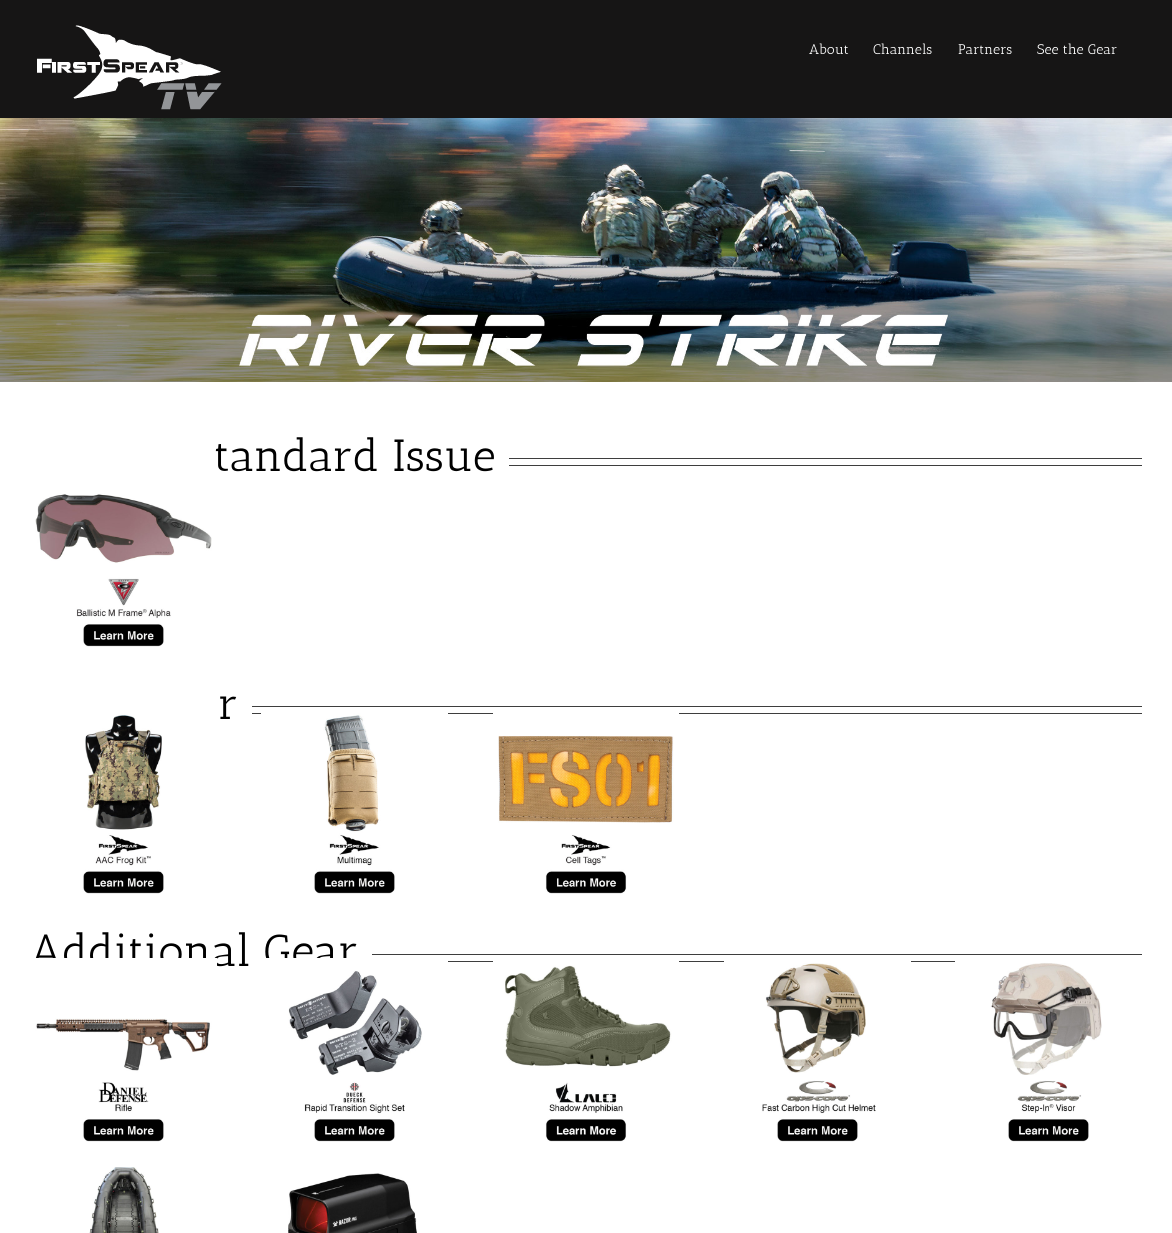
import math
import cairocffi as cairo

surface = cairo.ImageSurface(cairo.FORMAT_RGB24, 1172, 1233)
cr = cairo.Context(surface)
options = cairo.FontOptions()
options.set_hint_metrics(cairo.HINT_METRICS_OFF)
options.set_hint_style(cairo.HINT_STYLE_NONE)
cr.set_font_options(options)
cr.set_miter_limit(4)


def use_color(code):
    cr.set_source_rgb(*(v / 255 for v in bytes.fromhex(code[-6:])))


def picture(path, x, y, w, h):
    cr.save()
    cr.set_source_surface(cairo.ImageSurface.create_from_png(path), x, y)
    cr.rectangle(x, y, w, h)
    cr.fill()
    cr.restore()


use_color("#ffffff")
cr.paint()
use_color("#161515")
cr.rectangle(0, 0, 1172, 118)
cr.fill()
picture("img1.png", 37, 25, 185, 85)
cr.select_font_face("Antic Slab")
cr.set_font_size(14)
use_color("#ffffff")
cr.move_to(809, 54)
cr.show_text("About")
cr.move_to(873, 54)
cr.show_text("Channels")
cr.move_to(958, 54)
cr.show_text("Partners")
cr.move_to(1037, 54)
cr.show_text("See the Gear")
picture("img2.png", 0, 118, 1172, 264)
cr.set_font_size(45)
use_color("#000000")
cr.move_to(214, 471)
cr.show_text("tandard Issue")
use_color("#3e3e3e")
cr.rectangle(509, 458, 633, 1)
cr.fill()
cr.rectangle(509, 465, 633, 1)
cr.fill()
picture("img3.png", 33, 463, 180, 184)
use_color("#000000")
cr.move_to(218, 719)
cr.show_text("r")
use_color("#3e3e3e")
cr.rectangle(252, 706, 890, 1)
cr.fill()
cr.rectangle(252, 713, 890, 1)
cr.fill()
picture("img4.png", 32, 711, 185, 183)
picture("img5.png", 261, 713, 187, 181)
picture("img6.png", 493, 713, 186, 181)
use_color("#000000")
cr.move_to(30, 966)
cr.show_text("Additional Gear")
use_color("#3e3e3e")
cr.rectangle(372, 954, 770, 1)
cr.fill()
cr.rectangle(448, 961, 507, 1)
cr.fill()
picture("img7.png", 30, 958, 187, 184)
picture("img8.png", 266, 958, 182, 184)
picture("img9.png", 493, 961, 186, 181)
picture("img10.png", 724, 961, 187, 181)
picture("img11.png", 955, 961, 187, 181)
picture("img12.png", 89, 1167, 70, 66)
picture("img13.png", 288, 1173, 129, 60)
surface.write_to_png("result.png")
